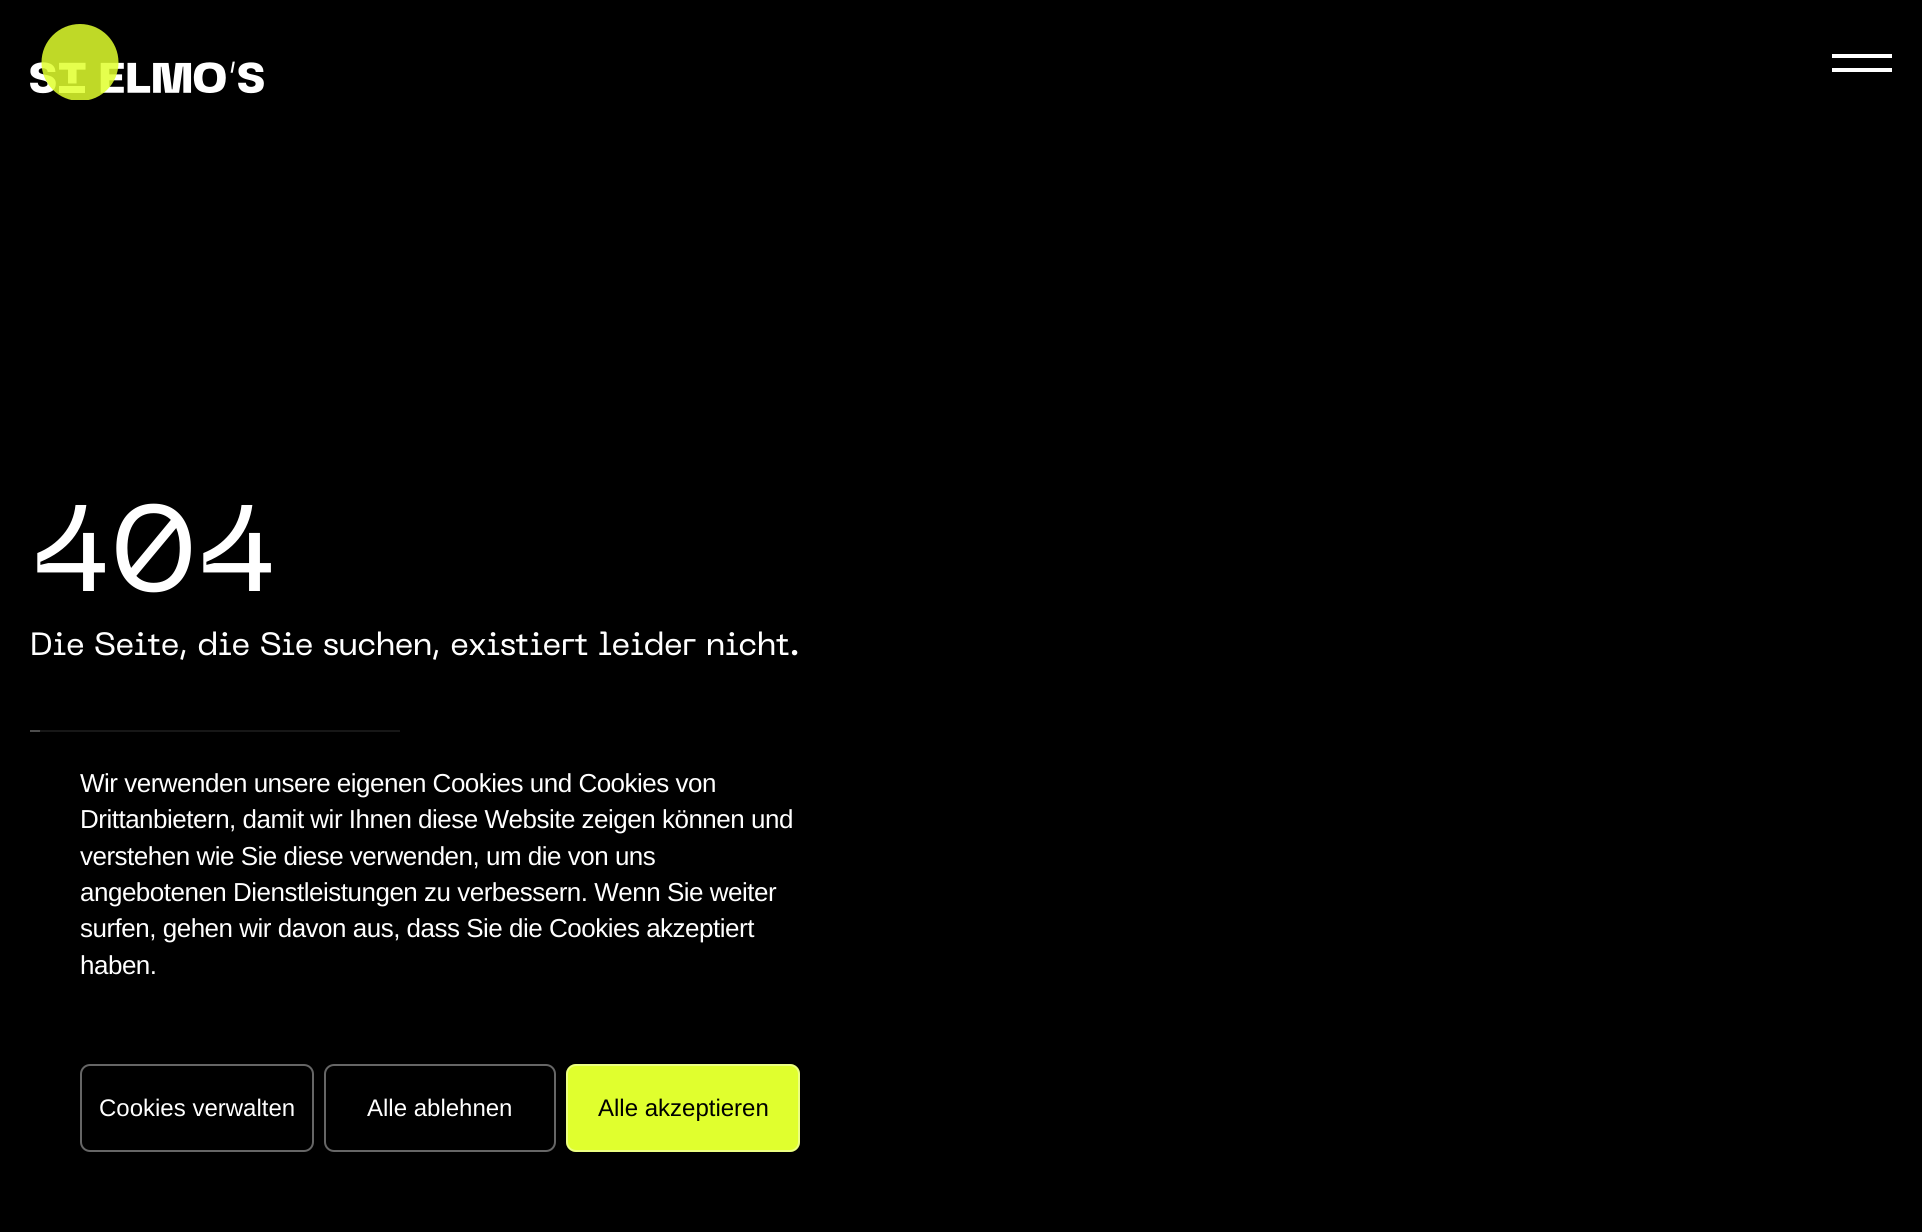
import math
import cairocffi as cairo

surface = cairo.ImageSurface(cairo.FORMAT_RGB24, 1922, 1232)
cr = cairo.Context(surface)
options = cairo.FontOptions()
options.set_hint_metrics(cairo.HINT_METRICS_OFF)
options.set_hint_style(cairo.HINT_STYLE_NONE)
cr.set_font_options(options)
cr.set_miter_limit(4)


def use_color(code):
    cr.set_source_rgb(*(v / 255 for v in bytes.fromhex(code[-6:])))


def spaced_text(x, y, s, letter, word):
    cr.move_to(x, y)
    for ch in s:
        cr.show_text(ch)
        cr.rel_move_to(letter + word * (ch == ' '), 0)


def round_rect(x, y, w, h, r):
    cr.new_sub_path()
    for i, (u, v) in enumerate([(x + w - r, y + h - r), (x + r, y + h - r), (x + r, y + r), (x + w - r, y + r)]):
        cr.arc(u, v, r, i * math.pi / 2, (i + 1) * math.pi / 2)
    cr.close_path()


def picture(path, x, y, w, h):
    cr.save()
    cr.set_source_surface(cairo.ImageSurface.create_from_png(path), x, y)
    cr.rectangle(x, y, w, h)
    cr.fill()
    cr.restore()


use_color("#000000")
cr.paint()
picture("img1.png", 30, 24, 234, 76)
use_color("#ffffff")
cr.rectangle(1832, 54, 60, 4)
cr.fill()
cr.rectangle(1832, 68, 60, 4)
cr.fill()
cr.select_font_face("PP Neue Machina")
cr.set_font_size(122)
spaced_text(30, 591, "404", -2, 0)
cr.select_font_face("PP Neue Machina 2")
cr.set_font_size(32)
spaced_text(30, 655, "Die Seite, die Sie suchen, existiert leider nicht.", -0.5, 0)
use_color("#4d4d4d")
cr.rectangle(30, 730, 370, 2)
cr.fill()
cr.set_source_rgba(0, 0, 0, 0.7)
round_rect(40, 716, 800, 476, 16)
cr.fill()
cr.select_font_face("Liberation Sans")
cr.set_font_size(26)
use_color("#ffffff")
spaced_text(80, 792, "Wir verwenden unsere eigenen Cookies und Cookies von", -0.5, 0)
spaced_text(80, 828, "Drittanbietern, damit wir Ihnen diese Website zeigen können und", -0.5, 0)
spaced_text(80, 865, "verstehen wie Sie diese verwenden, um die von uns", -0.5, 0)
spaced_text(80, 901, "angebotenen Dienstleistungen zu verbessern. Wenn Sie weiter", -0.5, 0)
spaced_text(80, 937, "surfen, gehen wir davon aus, dass Sie die Cookies akzeptiert", -0.5, 0)
spaced_text(80, 974, "haben.", -0.5, 0)
round_rect(81, 1065, 232, 86, 9)
use_color("#666666")
cr.stroke()
cr.set_font_size(24)
use_color("#ffffff")
cr.move_to(99, 1116)
cr.show_text("Cookies verwalten")
round_rect(325, 1065, 230, 86, 9)
use_color("#666666")
cr.stroke()
use_color("#ffffff")
cr.move_to(367, 1116)
cr.show_text("Alle ablehnen")
use_color("#e0ff2e")
round_rect(566, 1064, 234, 88, 10)
cr.fill()
round_rect(567, 1065, 232, 86, 9)
cr.set_source_rgba(1, 1, 1, 0.4)
cr.stroke()
use_color("#000000")
cr.move_to(598, 1116)
cr.show_text("Alle akzeptieren")
surface.write_to_png("result.png")
